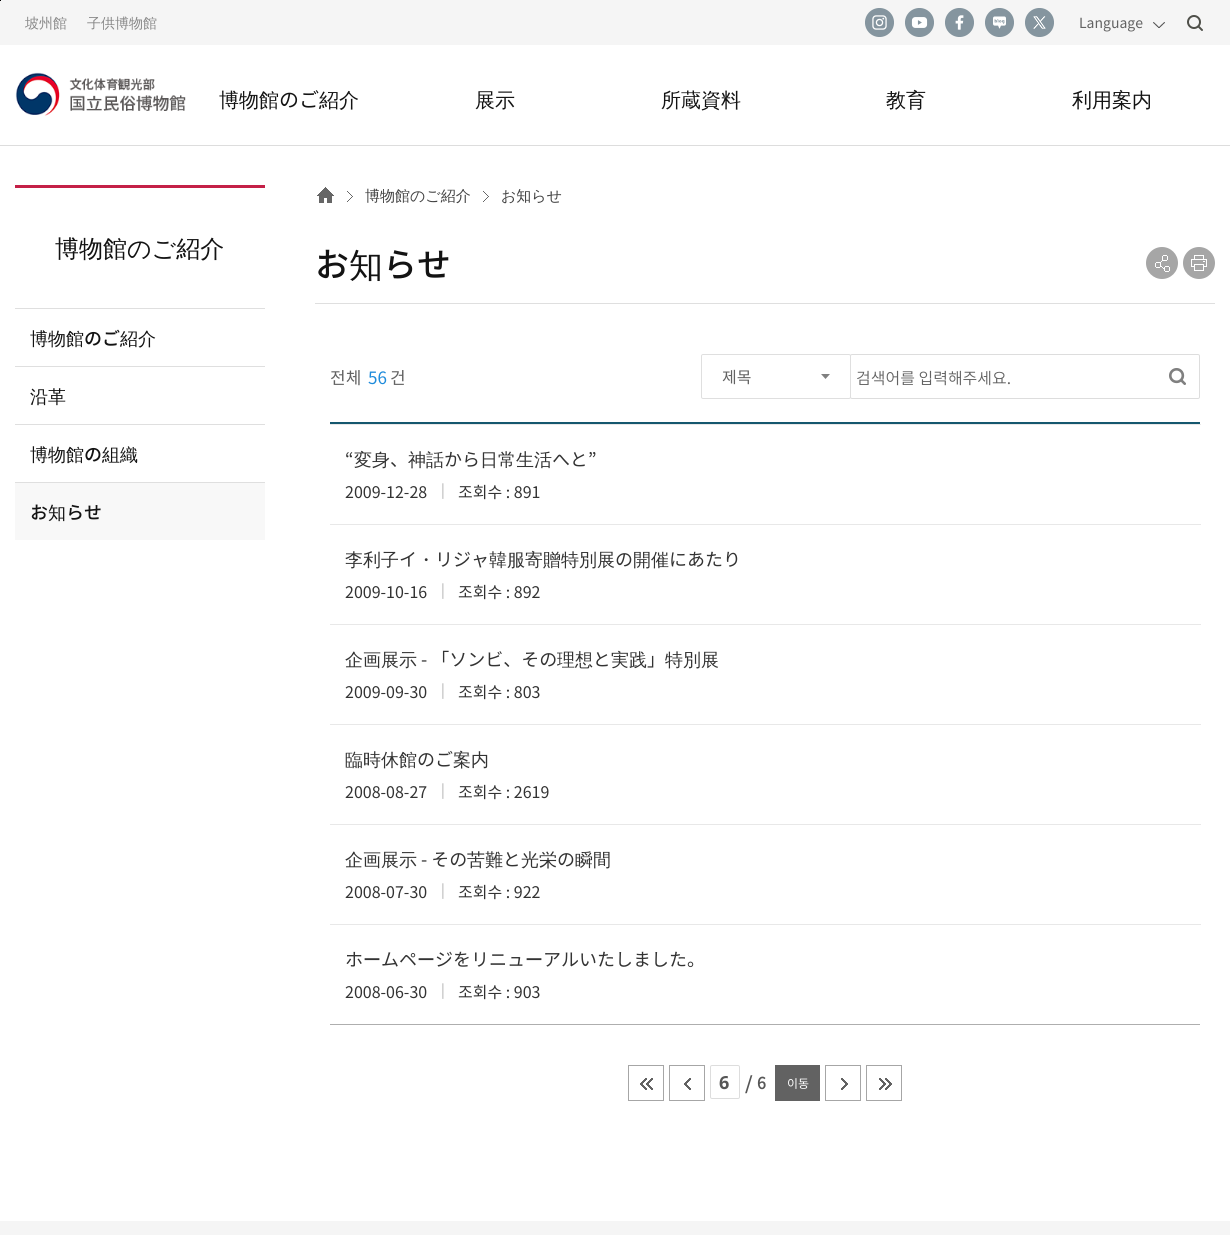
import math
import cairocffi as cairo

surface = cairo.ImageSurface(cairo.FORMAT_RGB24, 1230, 1235)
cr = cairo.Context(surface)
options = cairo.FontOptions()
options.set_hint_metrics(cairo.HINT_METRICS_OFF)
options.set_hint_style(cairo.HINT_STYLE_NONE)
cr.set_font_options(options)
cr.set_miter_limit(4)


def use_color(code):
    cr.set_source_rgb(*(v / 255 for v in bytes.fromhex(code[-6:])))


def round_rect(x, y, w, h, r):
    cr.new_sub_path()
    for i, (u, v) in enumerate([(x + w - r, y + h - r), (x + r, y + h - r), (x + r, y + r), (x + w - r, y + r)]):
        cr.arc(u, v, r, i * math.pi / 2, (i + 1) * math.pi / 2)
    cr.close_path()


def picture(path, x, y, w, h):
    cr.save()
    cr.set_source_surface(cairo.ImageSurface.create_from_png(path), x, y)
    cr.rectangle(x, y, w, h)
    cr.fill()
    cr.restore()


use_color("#ffffff")
cr.paint()
use_color("#f5f5f5")
cr.rectangle(0, 0, 1230, 45)
cr.fill()
use_color("#000000")
cr.rectangle(0, 0, 1, 1)
cr.fill()
cr.select_font_face("WenQuanYi Zen Hei Medium")
cr.set_font_size(14)
use_color("#888888")
cr.move_to(25, 28)
cr.show_text("坡州館")
cr.move_to(87, 28)
cr.show_text("子供博物館")
picture("img1.png", 865, 8, 29, 29)
picture("img2.png", 905, 8, 29, 29)
picture("img3.png", 945, 8, 29, 29)
picture("img4.png", 985, 8, 29, 29)
picture("img5.png", 1025, 8, 29, 29)
cr.select_font_face("Noto Sans KR")
use_color("#626262")
cr.move_to(1079, 28)
cr.show_text("Language")
picture("img6.png", 1153, 22, 12, 6)
picture("img7.png", 1187, 15, 16, 16)
picture("img8.png", 15, 72, 171, 44)
cr.select_font_face("WenQuanYi Zen Hei Medium")
cr.set_font_size(20)
use_color("#131313")
cr.move_to(219, 107)
cr.show_text("博物館")
cr.select_font_face("Noto Sans KR")
cr.move_to(279, 107)
cr.show_text("のご")
cr.select_font_face("WenQuanYi Zen Hei Medium")
cr.move_to(319, 107)
cr.show_text("紹介")
cr.move_to(475, 107)
cr.show_text("展示")
cr.move_to(661, 107)
cr.show_text("所蔵資料")
cr.move_to(886, 107)
cr.show_text("教育")
cr.move_to(1072, 107)
cr.show_text("利用案内")
use_color("#dddddd")
cr.rectangle(0, 145, 1230, 1)
cr.fill()
use_color("#c42047")
cr.rectangle(15, 185, 250, 3)
cr.fill()
cr.set_font_size(24)
use_color("#131313")
cr.move_to(55, 257)
cr.show_text("博物館のご紹介")
use_color("#dfdfdf")
cr.rectangle(15, 308, 250, 1)
cr.fill()
cr.set_font_size(18)
use_color("#131313")
cr.move_to(30, 345)
cr.show_text("博物館")
cr.select_font_face("Noto Sans KR Medium")
cr.move_to(84, 345)
cr.show_text("のご")
cr.select_font_face("WenQuanYi Zen Hei Medium")
cr.move_to(120, 345)
cr.show_text("紹介")
use_color("#dfdfdf")
cr.rectangle(15, 366, 250, 1)
cr.fill()
use_color("#131313")
cr.move_to(30, 403)
cr.show_text("沿革")
use_color("#dfdfdf")
cr.rectangle(15, 424, 250, 1)
cr.fill()
use_color("#131313")
cr.move_to(30, 461)
cr.show_text("博物館")
cr.select_font_face("Noto Sans KR Medium")
cr.move_to(84, 461)
cr.show_text("の")
cr.select_font_face("WenQuanYi Zen Hei Medium")
cr.move_to(102, 461)
cr.show_text("組織")
use_color("#f8f8f8")
cr.rectangle(15, 483, 250, 57)
cr.fill()
use_color("#dfdfdf")
cr.rectangle(15, 482, 250, 1)
cr.fill()
cr.select_font_face("Noto Sans KR Medium")
use_color("#131313")
cr.move_to(30, 519)
cr.show_text("お")
cr.select_font_face("WenQuanYi Zen Hei Medium")
cr.move_to(48, 519)
cr.show_text("知")
cr.select_font_face("Noto Sans KR Medium")
cr.move_to(66, 519)
cr.show_text("らせ")
picture("img9.png", 317, 187, 17, 16)
picture("img10.png", 347, 191, 6, 11)
cr.select_font_face("WenQuanYi Zen Hei Medium")
cr.set_font_size(15)
use_color("#424242")
cr.move_to(365, 201)
cr.show_text("博物館のご紹介")
picture("img10.png", 483, 191, 6, 11)
cr.move_to(501, 201)
cr.show_text("お知らせ")
use_color("#dfdfdf")
cr.rectangle(315, 303, 900, 1)
cr.fill()
cr.select_font_face("Noto Sans KR Medium")
cr.set_font_size(34)
use_color("#131313")
cr.move_to(315, 277)
cr.show_text("お")
cr.select_font_face("WenQuanYi Zen Hei Medium")
cr.move_to(349, 277)
cr.show_text("知")
cr.select_font_face("Noto Sans KR Medium")
cr.move_to(383, 277)
cr.show_text("らせ")
use_color("#a6a6a6")
cr.new_path()
cr.arc(1162, 263, 16, 0, 2 * math.pi)
cr.fill()
picture("img11.png", 1155, 255, 15, 17)
cr.arc(1199, 263, 16, 0, 2 * math.pi)
cr.fill()
picture("img12.png", 1191, 255, 16, 16)
cr.select_font_face("Noto Sans KR")
cr.set_font_size(17)
use_color("#626262")
cr.move_to(330, 384)
cr.show_text("전체")
use_color("#1e8bdb")
cr.move_to(368, 384)
cr.show_text("56")
use_color("#626262")
cr.move_to(390, 384)
cr.show_text("건")
picture("img13.png", 821, 374, 9, 5)
round_rect(850.5, 354.5, 349, 44, 1.5)
use_color("#dddddd")
cr.set_line_width(1)
cr.stroke()
round_rect(701.5, 354.5, 149, 44, 1.5)
use_color("#dfdfdf")
cr.stroke()
cr.set_font_size(16)
use_color("#626262")
cr.move_to(722, 383)
cr.show_text("제목")
cr.select_font_face("Noto Sans KR Light")
cr.move_to(856, 384)
cr.show_text("검색어를 입력해주세요.")
picture("img14.png", 1169, 368, 17, 17)
use_color("#15576e")
cr.rectangle(330, 422, 870, 2)
cr.fill()
use_color("#aeaeae")
cr.rectangle(330, 1024, 870, 1)
cr.fill()
use_color("#e8e8e8")
cr.rectangle(330, 424, 871, 1)
cr.fill()
cr.select_font_face("Noto Sans KR")
cr.set_font_size(18)
use_color("#333333")
cr.move_to(345, 466)
cr.show_text("“")
cr.select_font_face("WenQuanYi Zen Hei Medium")
cr.move_to(354, 466)
cr.show_text("変身")
cr.move_to(408, 466)
cr.show_text("神話")
cr.select_font_face("Noto Sans KR")
cr.move_to(444, 466)
cr.show_text("から")
cr.select_font_face("WenQuanYi Zen Hei Medium")
cr.move_to(480, 466)
cr.show_text("日常生活")
cr.select_font_face("Noto Sans KR")
cr.move_to(552, 466)
cr.show_text("へと”")
cr.move_to(390, 466)
cr.show_text("、")
cr.set_font_size(16)
cr.move_to(345, 498)
cr.show_text("2009-12-28")
cr.set_font_size(14)
use_color("#aeaeae")
cr.move_to(441, 495)
cr.show_text("|")
cr.set_font_size(16)
use_color("#333333")
cr.move_to(458, 498)
cr.show_text("조회수 : 891")
use_color("#e8e8e8")
cr.rectangle(330, 524, 871, 1)
cr.fill()
cr.select_font_face("WenQuanYi Zen Hei Medium")
cr.set_font_size(18)
use_color("#333333")
cr.move_to(345, 566)
cr.show_text("李利子")
cr.select_font_face("Noto Sans KR")
cr.move_to(399, 566)
cr.show_text("イ")
cr.select_font_face("WenQuanYi Zen Hei Medium")
cr.move_to(417, 566)
cr.show_text("・")
cr.select_font_face("Noto Sans KR")
cr.move_to(435, 566)
cr.show_text("リジャ")
cr.select_font_face("WenQuanYi Zen Hei Medium")
cr.move_to(489, 566)
cr.show_text("韓服寄贈特別展")
cr.select_font_face("Noto Sans KR")
cr.move_to(615, 566)
cr.show_text("の")
cr.select_font_face("WenQuanYi Zen Hei Medium")
cr.move_to(633, 566)
cr.show_text("開催")
cr.select_font_face("Noto Sans KR")
cr.move_to(669, 566)
cr.show_text("にあたり")
cr.set_font_size(16)
cr.move_to(345, 598)
cr.show_text("2009-10-16")
cr.set_font_size(14)
use_color("#aeaeae")
cr.move_to(441, 595)
cr.show_text("|")
cr.set_font_size(16)
use_color("#333333")
cr.move_to(458, 598)
cr.show_text("조회수 : 892")
use_color("#e8e8e8")
cr.rectangle(330, 624, 871, 1)
cr.fill()
cr.select_font_face("WenQuanYi Zen Hei Medium")
cr.set_font_size(18)
use_color("#333333")
cr.move_to(345, 666)
cr.show_text("企画展示")
cr.select_font_face("Noto Sans KR")
cr.move_to(421, 666)
cr.show_text("- 「ソンビ、その")
cr.select_font_face("WenQuanYi Zen Hei Medium")
cr.move_to(557, 666)
cr.show_text("理想")
cr.select_font_face("Noto Sans KR")
cr.move_to(593, 666)
cr.show_text("と")
cr.select_font_face("WenQuanYi Zen Hei Medium")
cr.move_to(611, 666)
cr.show_text("実践")
cr.select_font_face("Noto Sans KR")
cr.move_to(647, 666)
cr.show_text("」")
cr.select_font_face("WenQuanYi Zen Hei Medium")
cr.move_to(665, 666)
cr.show_text("特別展")
cr.select_font_face("Noto Sans KR")
cr.set_font_size(16)
cr.move_to(345, 698)
cr.show_text("2009-09-30")
cr.set_font_size(14)
use_color("#aeaeae")
cr.move_to(441, 695)
cr.show_text("|")
cr.set_font_size(16)
use_color("#333333")
cr.move_to(458, 698)
cr.show_text("조회수 : 803")
use_color("#e8e8e8")
cr.rectangle(330, 724, 871, 1)
cr.fill()
cr.select_font_face("WenQuanYi Zen Hei Medium")
cr.set_font_size(18)
use_color("#333333")
cr.move_to(345, 766)
cr.show_text("臨時休館")
cr.select_font_face("Noto Sans KR")
cr.move_to(417, 766)
cr.show_text("のご")
cr.select_font_face("WenQuanYi Zen Hei Medium")
cr.move_to(453, 766)
cr.show_text("案内")
cr.select_font_face("Noto Sans KR")
cr.set_font_size(16)
cr.move_to(345, 798)
cr.show_text("2008-08-27")
cr.set_font_size(14)
use_color("#aeaeae")
cr.move_to(441, 795)
cr.show_text("|")
cr.set_font_size(16)
use_color("#333333")
cr.move_to(458, 798)
cr.show_text("조회수 : 2619")
use_color("#e8e8e8")
cr.rectangle(330, 824, 871, 1)
cr.fill()
cr.select_font_face("WenQuanYi Zen Hei Medium")
cr.set_font_size(18)
use_color("#333333")
cr.move_to(345, 866)
cr.show_text("企画展示")
cr.select_font_face("Noto Sans KR")
cr.move_to(421, 866)
cr.show_text("- その")
cr.select_font_face("WenQuanYi Zen Hei Medium")
cr.move_to(467, 866)
cr.show_text("苦難")
cr.select_font_face("Noto Sans KR")
cr.move_to(503, 866)
cr.show_text("と")
cr.select_font_face("WenQuanYi Zen Hei Medium")
cr.move_to(521, 866)
cr.show_text("光栄")
cr.select_font_face("Noto Sans KR")
cr.move_to(557, 866)
cr.show_text("の")
cr.select_font_face("WenQuanYi Zen Hei Medium")
cr.move_to(575, 866)
cr.show_text("瞬間")
cr.select_font_face("Noto Sans KR")
cr.set_font_size(16)
cr.move_to(345, 898)
cr.show_text("2008-07-30")
cr.set_font_size(14)
use_color("#aeaeae")
cr.move_to(441, 895)
cr.show_text("|")
cr.set_font_size(16)
use_color("#333333")
cr.move_to(458, 898)
cr.show_text("조회수 : 922")
use_color("#e8e8e8")
cr.rectangle(330, 924, 871, 1)
cr.fill()
cr.set_font_size(18)
use_color("#333333")
cr.move_to(345, 966)
cr.show_text("ホ")
cr.select_font_face("WenQuanYi Zen Hei Medium")
cr.move_to(363, 966)
cr.show_text("ー")
cr.select_font_face("Noto Sans KR")
cr.move_to(381, 966)
cr.show_text("ムペ")
cr.select_font_face("WenQuanYi Zen Hei Medium")
cr.move_to(417, 966)
cr.show_text("ー")
cr.select_font_face("Noto Sans KR")
cr.move_to(435, 966)
cr.show_text("ジをリニュ")
cr.select_font_face("WenQuanYi Zen Hei Medium")
cr.move_to(525, 966)
cr.show_text("ー")
cr.select_font_face("Noto Sans KR")
cr.move_to(543, 966)
cr.show_text("アルいたしました。")
cr.set_font_size(16)
cr.move_to(345, 998)
cr.show_text("2008-06-30")
cr.set_font_size(14)
use_color("#aeaeae")
cr.move_to(441, 995)
cr.show_text("|")
cr.set_font_size(16)
use_color("#333333")
cr.move_to(458, 998)
cr.show_text("조회수 : 903")
cr.rectangle(628.5, 1065.5, 35, 35)
use_color("#a6a6a6")
cr.stroke()
picture("img15.png", 640, 1078, 13, 12)
cr.rectangle(669.5, 1065.5, 35, 35)
cr.stroke()
picture("img16.png", 684, 1078, 7, 12)
round_rect(710.5, 1065.5, 29, 33, 1.5)
use_color("#dddddd")
cr.stroke()
cr.select_font_face("Noto Sans", cairo.FONT_SLANT_NORMAL, cairo.FONT_WEIGHT_BOLD)
cr.set_font_size(18)
use_color("#575757")
cr.move_to(719, 1089)
cr.show_text("6")
cr.select_font_face("Noto Sans KR", cairo.FONT_SLANT_NORMAL, cairo.FONT_WEIGHT_BOLD)
cr.move_to(745, 1090)
cr.show_text("/")
cr.set_font_size(16)
cr.move_to(757, 1089)
cr.show_text("6")
use_color("#626262")
cr.rectangle(775, 1065, 45, 36)
cr.fill()
cr.select_font_face("Noto Sans KR")
cr.set_font_size(12)
use_color("#ffffff")
cr.move_to(787, 1088)
cr.show_text("이동")
cr.rectangle(825.5, 1065.5, 35, 35)
use_color("#a6a6a6")
cr.stroke()
picture("img17.png", 841, 1078, 7, 12)
cr.rectangle(866.5, 1065.5, 35, 35)
cr.stroke()
picture("img18.png", 879, 1078, 13, 12)
use_color("#f5f5f5")
cr.rectangle(0, 1221, 1230, 14)
cr.fill()
surface.write_to_png("result.png")
